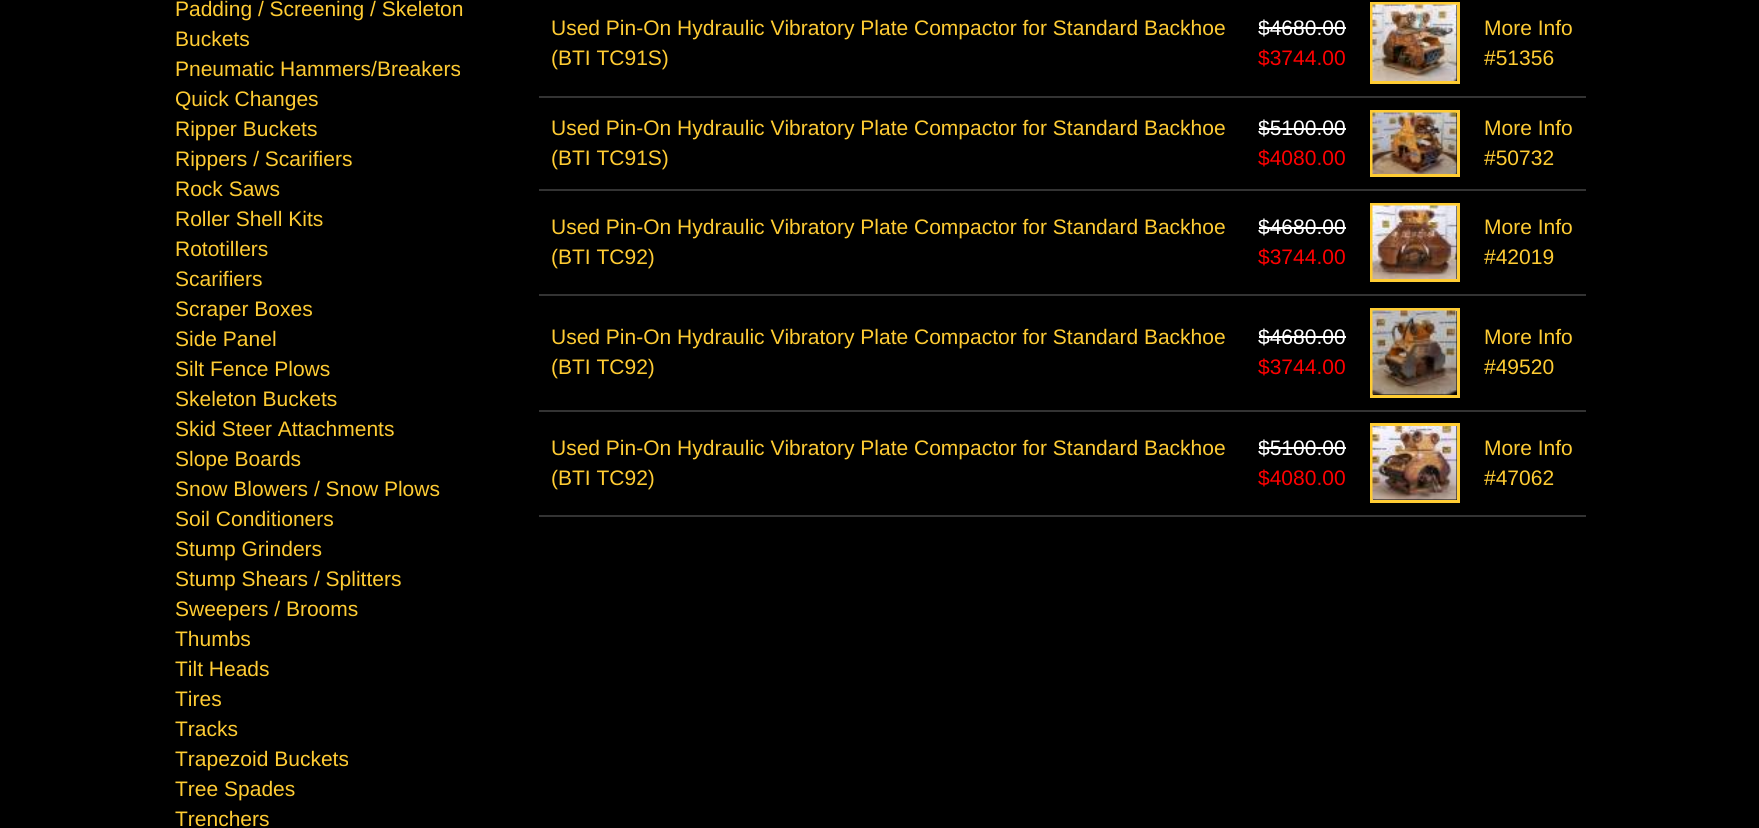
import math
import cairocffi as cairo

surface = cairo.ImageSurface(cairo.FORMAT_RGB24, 1759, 828)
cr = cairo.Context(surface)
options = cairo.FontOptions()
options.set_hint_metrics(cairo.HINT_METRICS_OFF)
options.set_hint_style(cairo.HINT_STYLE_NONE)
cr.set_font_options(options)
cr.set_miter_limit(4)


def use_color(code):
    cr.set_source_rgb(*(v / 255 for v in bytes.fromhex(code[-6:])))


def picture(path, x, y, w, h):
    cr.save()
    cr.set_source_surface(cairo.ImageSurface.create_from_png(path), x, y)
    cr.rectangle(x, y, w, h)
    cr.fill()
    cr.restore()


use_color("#000000")
cr.paint()
cr.select_font_face("Liberation Sans")
cr.set_font_size(21)
use_color("#ffcc33")
cr.move_to(175, 16)
cr.show_text("Padding / Screening / Skeleton")
cr.move_to(175, 46)
cr.show_text("Buckets")
cr.move_to(175, 76)
cr.show_text("Pneumatic Hammers/Breakers")
cr.move_to(175, 106)
cr.show_text("Quick Changes")
cr.move_to(175, 136)
cr.show_text("Ripper Buckets")
cr.move_to(175, 166)
cr.show_text("Rippers / Scarifiers")
cr.move_to(175, 196)
cr.show_text("Rock Saws")
cr.move_to(175, 226)
cr.show_text("Roller Shell Kits")
cr.move_to(175, 256)
cr.show_text("Rototillers")
cr.move_to(175, 286)
cr.show_text("Scarifiers")
cr.move_to(175, 316)
cr.show_text("Scraper Boxes")
cr.move_to(175, 346)
cr.show_text("Side Panel")
cr.move_to(175, 376)
cr.show_text("Silt Fence Plows")
cr.move_to(175, 406)
cr.show_text("Skeleton Buckets")
cr.move_to(175, 436)
cr.show_text("Skid Steer Attachments")
cr.move_to(175, 466)
cr.show_text("Slope Boards")
cr.move_to(175, 496)
cr.show_text("Snow Blowers / Snow Plows")
cr.move_to(175, 526)
cr.show_text("Soil Conditioners")
cr.move_to(175, 556)
cr.show_text("Stump Grinders")
cr.move_to(175, 586)
cr.show_text("Stump Shears / Splitters")
cr.move_to(175, 616)
cr.show_text("Sweepers / Brooms")
cr.move_to(175, 646)
cr.show_text("Thumbs")
cr.move_to(175, 676)
cr.show_text("Tilt Heads")
cr.move_to(175, 706)
cr.show_text("Tires")
cr.move_to(175, 736)
cr.show_text("Tracks")
cr.move_to(175, 766)
cr.show_text("Trapezoid Buckets")
cr.move_to(175, 796)
cr.show_text("Tree Spades")
cr.move_to(175, 826)
cr.show_text("Trenchers")
cr.move_to(551, 35)
cr.show_text("Used Pin-On Hydraulic Vibratory Plate Compactor for Standard Backhoe")
cr.move_to(551, 65)
cr.show_text("(BTI TC91S)")
use_color("#ffffff")
cr.move_to(1258, 35)
cr.show_text("$4680.00")
cr.rectangle(1259, 27, 87, 2)
cr.fill()
use_color("#ff0000")
cr.move_to(1258, 65)
cr.show_text("$3744.00")
cr.rectangle(1371.5, 3.5, 87, 79)
use_color("#ffcc33")
cr.set_line_width(3)
cr.stroke()
picture("img1.png", 1372, 4, 85, 77)
use_color("#333333")
cr.rectangle(539, 96, 1047, 2)
cr.fill()
use_color("#ffcc33")
cr.move_to(1484, 35)
cr.show_text("More Info")
cr.move_to(1484, 65)
cr.show_text("#51356")
cr.move_to(551, 135)
cr.show_text("Used Pin-On Hydraulic Vibratory Plate Compactor for Standard Backhoe")
cr.move_to(551, 165)
cr.show_text("(BTI TC91S)")
use_color("#ffffff")
cr.move_to(1258, 135)
cr.show_text("$5100.00")
cr.rectangle(1259, 128, 87, 2)
cr.fill()
use_color("#ff0000")
cr.move_to(1258, 165)
cr.show_text("$4080.00")
cr.rectangle(1371.5, 111.5, 87, 64)
use_color("#ffcc33")
cr.stroke()
picture("img2.png", 1372, 112, 85, 62)
use_color("#333333")
cr.rectangle(539, 189, 1047, 2)
cr.fill()
use_color("#ffcc33")
cr.move_to(1484, 135)
cr.show_text("More Info")
cr.move_to(1484, 165)
cr.show_text("#50732")
cr.move_to(551, 234)
cr.show_text("Used Pin-On Hydraulic Vibratory Plate Compactor for Standard Backhoe")
cr.move_to(551, 264)
cr.show_text("(BTI TC92)")
use_color("#ffffff")
cr.move_to(1258, 234)
cr.show_text("$4680.00")
cr.rectangle(1259, 227, 87, 2)
cr.fill()
use_color("#ff0000")
cr.move_to(1258, 264)
cr.show_text("$3744.00")
cr.rectangle(1371.5, 204.5, 87, 76)
use_color("#ffcc33")
cr.stroke()
picture("img3.png", 1372, 205, 85, 74)
use_color("#333333")
cr.rectangle(539, 294, 1047, 2)
cr.fill()
use_color("#ffcc33")
cr.move_to(1484, 234)
cr.show_text("More Info")
cr.move_to(1484, 264)
cr.show_text("#42019")
cr.move_to(551, 344)
cr.show_text("Used Pin-On Hydraulic Vibratory Plate Compactor for Standard Backhoe")
cr.move_to(551, 374)
cr.show_text("(BTI TC92)")
use_color("#ffffff")
cr.move_to(1258, 344)
cr.show_text("$4680.00")
cr.rectangle(1259, 336, 87, 2)
cr.fill()
use_color("#ff0000")
cr.move_to(1258, 374)
cr.show_text("$3744.00")
cr.rectangle(1371.5, 309.5, 87, 87)
use_color("#ffcc33")
cr.stroke()
picture("img4.png", 1372, 310, 85, 85)
use_color("#333333")
cr.rectangle(539, 410, 1047, 2)
cr.fill()
use_color("#ffcc33")
cr.move_to(1484, 344)
cr.show_text("More Info")
cr.move_to(1484, 374)
cr.show_text("#49520")
cr.move_to(551, 455)
cr.show_text("Used Pin-On Hydraulic Vibratory Plate Compactor for Standard Backhoe")
cr.move_to(551, 485)
cr.show_text("(BTI TC92)")
use_color("#ffffff")
cr.move_to(1258, 455)
cr.show_text("$5100.00")
cr.rectangle(1259, 447, 87, 2)
cr.fill()
use_color("#ff0000")
cr.move_to(1258, 485)
cr.show_text("$4080.00")
cr.rectangle(1371.5, 424.5, 87, 77)
use_color("#ffcc33")
cr.stroke()
picture("img5.png", 1372, 426, 85, 74)
use_color("#333333")
cr.rectangle(539, 515, 1047, 2)
cr.fill()
use_color("#ffcc33")
cr.move_to(1484, 455)
cr.show_text("More Info")
cr.move_to(1484, 485)
cr.show_text("#47062")
surface.write_to_png("result.png")
